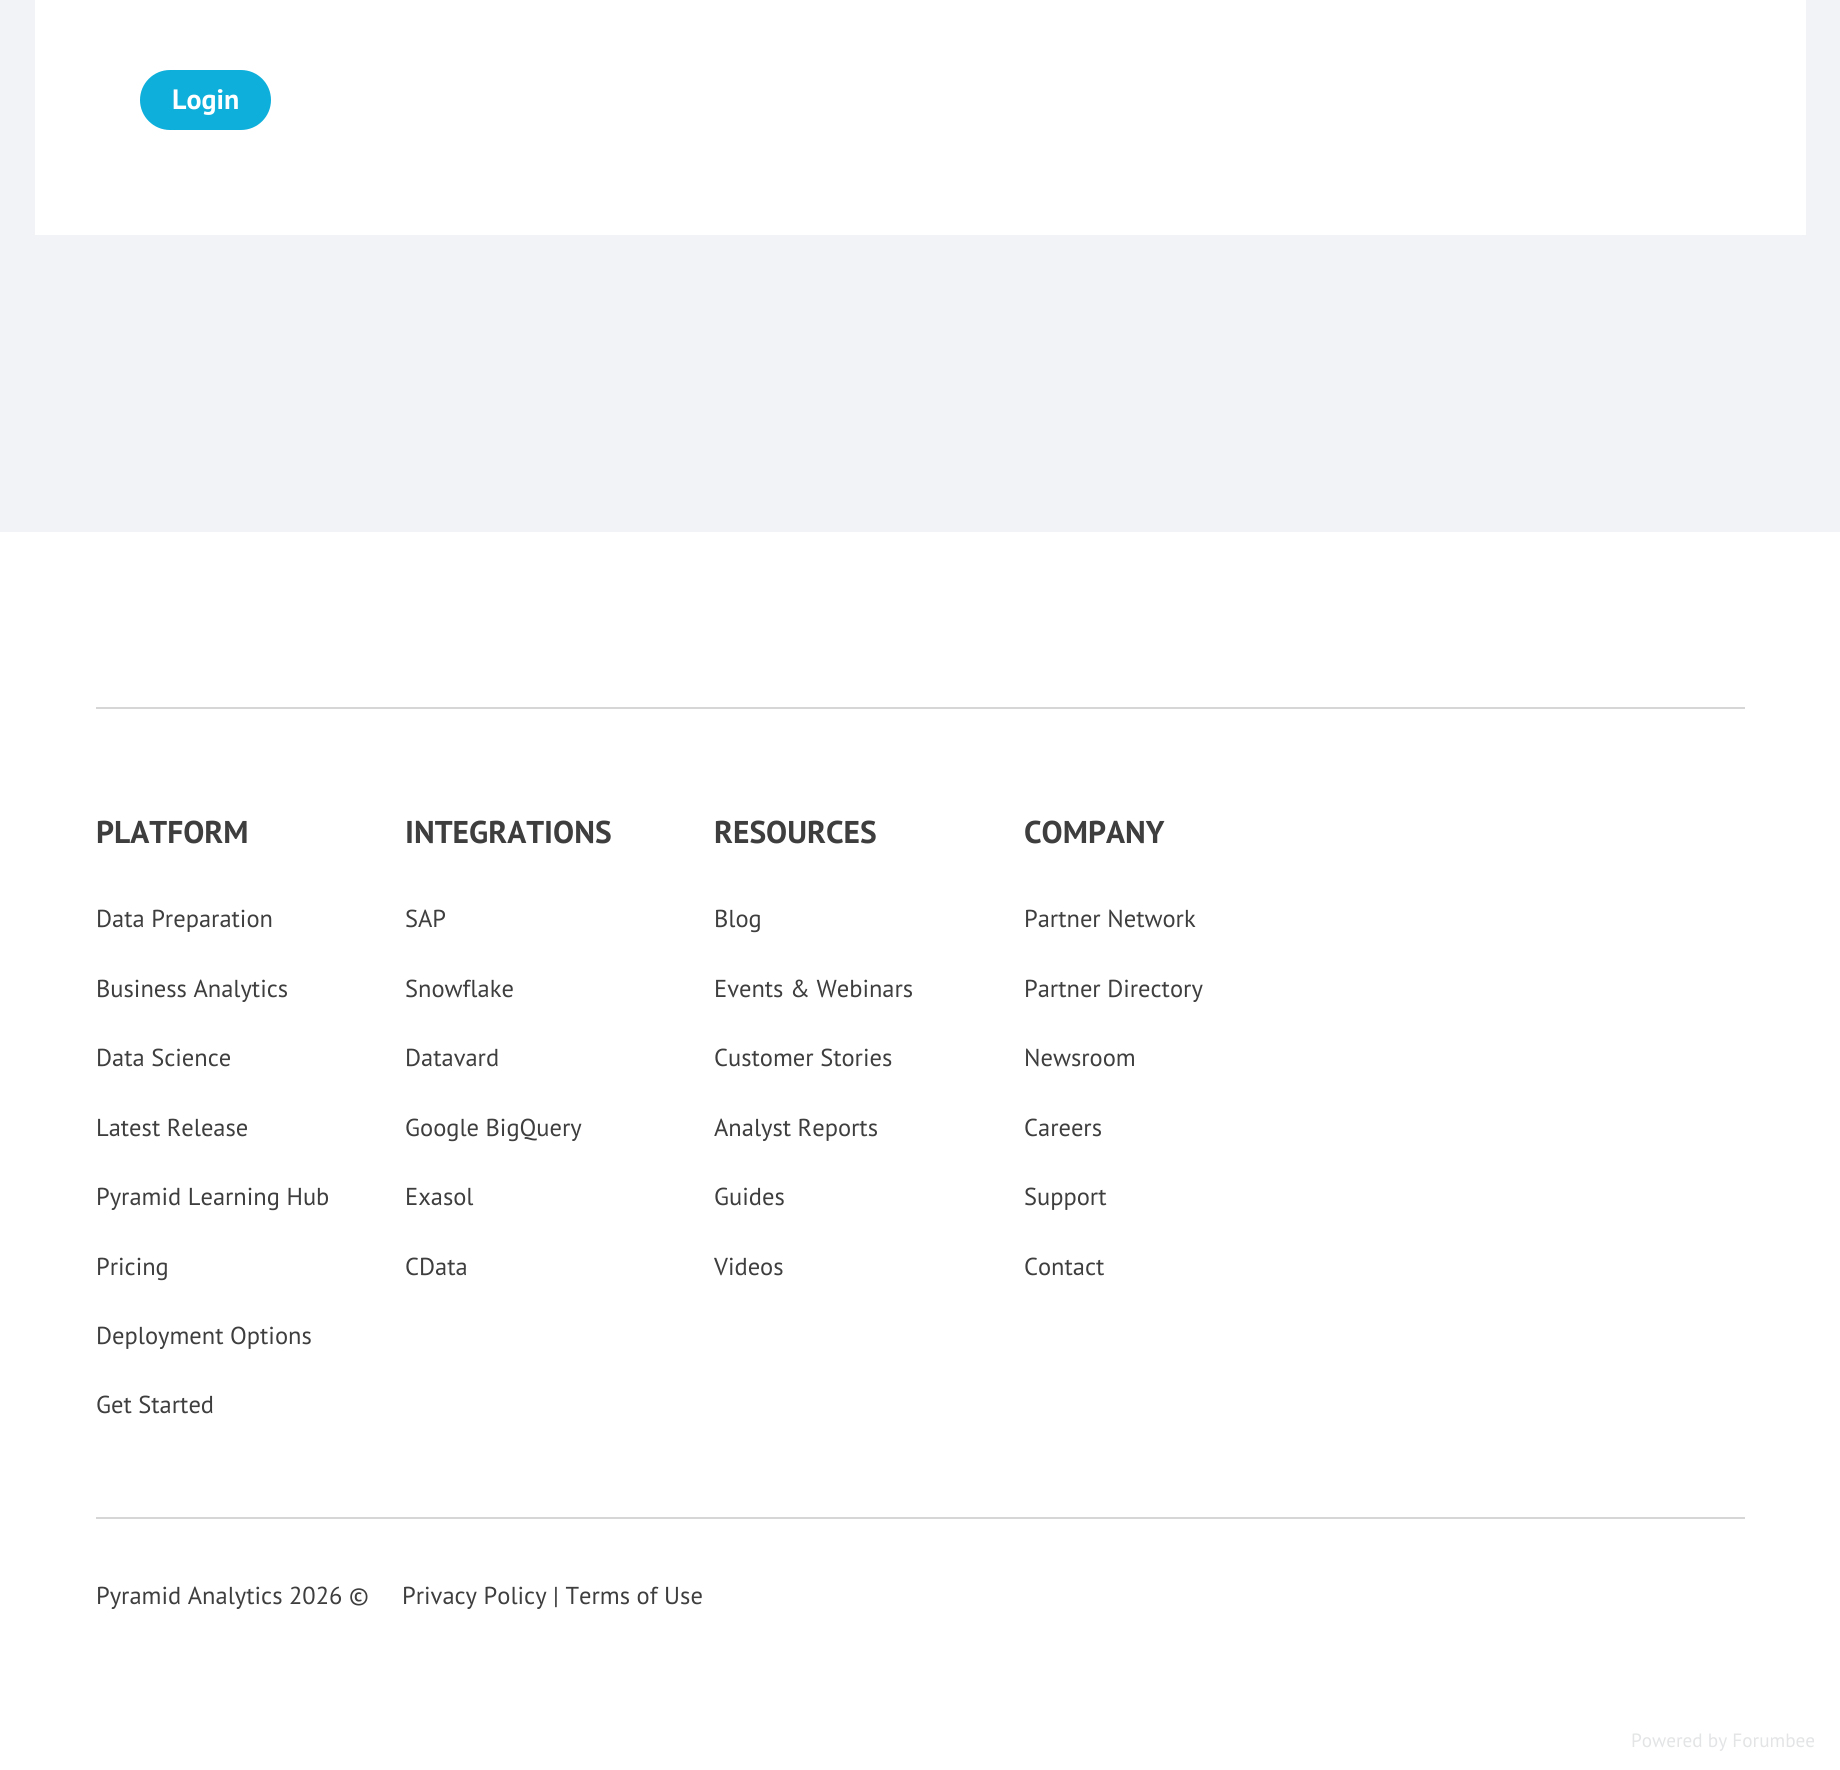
import math
import cairocffi as cairo

surface = cairo.ImageSurface(cairo.FORMAT_RGB24, 1840, 1770)
cr = cairo.Context(surface)
options = cairo.FontOptions()
options.set_hint_metrics(cairo.HINT_METRICS_OFF)
options.set_hint_style(cairo.HINT_STYLE_NONE)
cr.set_font_options(options)
cr.set_miter_limit(4)


def use_color(code):
    cr.set_source_rgb(*(v / 255 for v in bytes.fromhex(code[-6:])))


def round_rect(x, y, w, h, r):
    cr.new_sub_path()
    for i, (u, v) in enumerate([(x + w - r, y + h - r), (x + r, y + h - r), (x + r, y + r), (x + w - r, y + r)]):
        cr.arc(u, v, r, i * math.pi / 2, (i + 1) * math.pi / 2)
    cr.close_path()


use_color("#f1f3f6")
cr.paint()
use_color("#ffffff")
cr.rectangle(35, 0, 1771, 235)
cr.fill()
use_color("#0eafdb")
round_rect(140, 70, 131, 60, 30)
cr.fill()
cr.select_font_face("PT Sans", cairo.FONT_SLANT_NORMAL, cairo.FONT_WEIGHT_BOLD)
cr.set_font_size(28)
use_color("#ffffff")
cr.move_to(172, 109)
cr.show_text("Login")
cr.rectangle(0, 532, 1840, 1238)
cr.fill()
use_color("#d6d6d6")
cr.rectangle(96, 707, 1649, 2)
cr.fill()
cr.set_font_size(31.5)
use_color("#3e3e3e")
cr.move_to(96, 843)
cr.show_text("PLATFORM")
cr.select_font_face("PT Sans")
cr.set_font_size(24.5)
cr.move_to(96, 927)
cr.show_text("Data Preparation")
cr.move_to(96, 997)
cr.show_text("Business Analytics")
cr.move_to(96, 1066)
cr.show_text("Data Science")
cr.move_to(96, 1136)
cr.show_text("Latest Release")
cr.move_to(96, 1205)
cr.show_text("Pyramid Learning Hub")
cr.move_to(96, 1275)
cr.show_text("Pricing")
cr.move_to(96, 1344)
cr.show_text("Deployment Options")
cr.move_to(96, 1413)
cr.show_text("Get Started")
cr.select_font_face("PT Sans", cairo.FONT_SLANT_NORMAL, cairo.FONT_WEIGHT_BOLD)
cr.set_font_size(31.5)
cr.move_to(405, 843)
cr.show_text("INTEGRATIONS")
cr.select_font_face("PT Sans")
cr.set_font_size(24.5)
cr.move_to(405, 927)
cr.show_text("SAP")
cr.move_to(405, 997)
cr.show_text("Snowflake")
cr.move_to(405, 1066)
cr.show_text("Datavard")
cr.move_to(405, 1136)
cr.show_text("Google BigQuery")
cr.move_to(405, 1205)
cr.show_text("Exasol")
cr.move_to(405, 1275)
cr.show_text("CData")
cr.select_font_face("PT Sans", cairo.FONT_SLANT_NORMAL, cairo.FONT_WEIGHT_BOLD)
cr.set_font_size(31.5)
cr.move_to(714, 843)
cr.show_text("RESOURCES")
cr.select_font_face("PT Sans")
cr.set_font_size(24.5)
cr.move_to(714, 927)
cr.show_text("Blog")
cr.move_to(714, 997)
cr.show_text("Events & Webinars")
cr.move_to(714, 1066)
cr.show_text("Customer Stories")
cr.move_to(714, 1136)
cr.show_text("Analyst Reports")
cr.move_to(714, 1205)
cr.show_text("Guides")
cr.move_to(714, 1275)
cr.show_text("Videos")
cr.select_font_face("PT Sans", cairo.FONT_SLANT_NORMAL, cairo.FONT_WEIGHT_BOLD)
cr.set_font_size(31.5)
cr.move_to(1024, 843)
cr.show_text("COMPANY")
cr.select_font_face("PT Sans")
cr.set_font_size(24.5)
cr.move_to(1024, 927)
cr.show_text("Partner Network")
cr.move_to(1024, 997)
cr.show_text("Partner Directory")
cr.move_to(1024, 1066)
cr.show_text("Newsroom")
cr.move_to(1024, 1136)
cr.show_text("Careers")
cr.move_to(1024, 1205)
cr.show_text("Support")
cr.move_to(1024, 1275)
cr.show_text("Contact")
use_color("#d6d6d6")
cr.rectangle(96, 1517, 1649, 2)
cr.fill()
use_color("#3e3e3e")
cr.move_to(96, 1604)
cr.show_text("Pyramid Analytics 2026 ©")
cr.move_to(402, 1604)
cr.show_text("Privacy Policy | Terms of Use")
cr.set_font_size(19.25)
use_color("#e3e4e5")
cr.move_to(1631, 1747)
cr.show_text("Powered by Forumbee")
surface.write_to_png("result.png")
